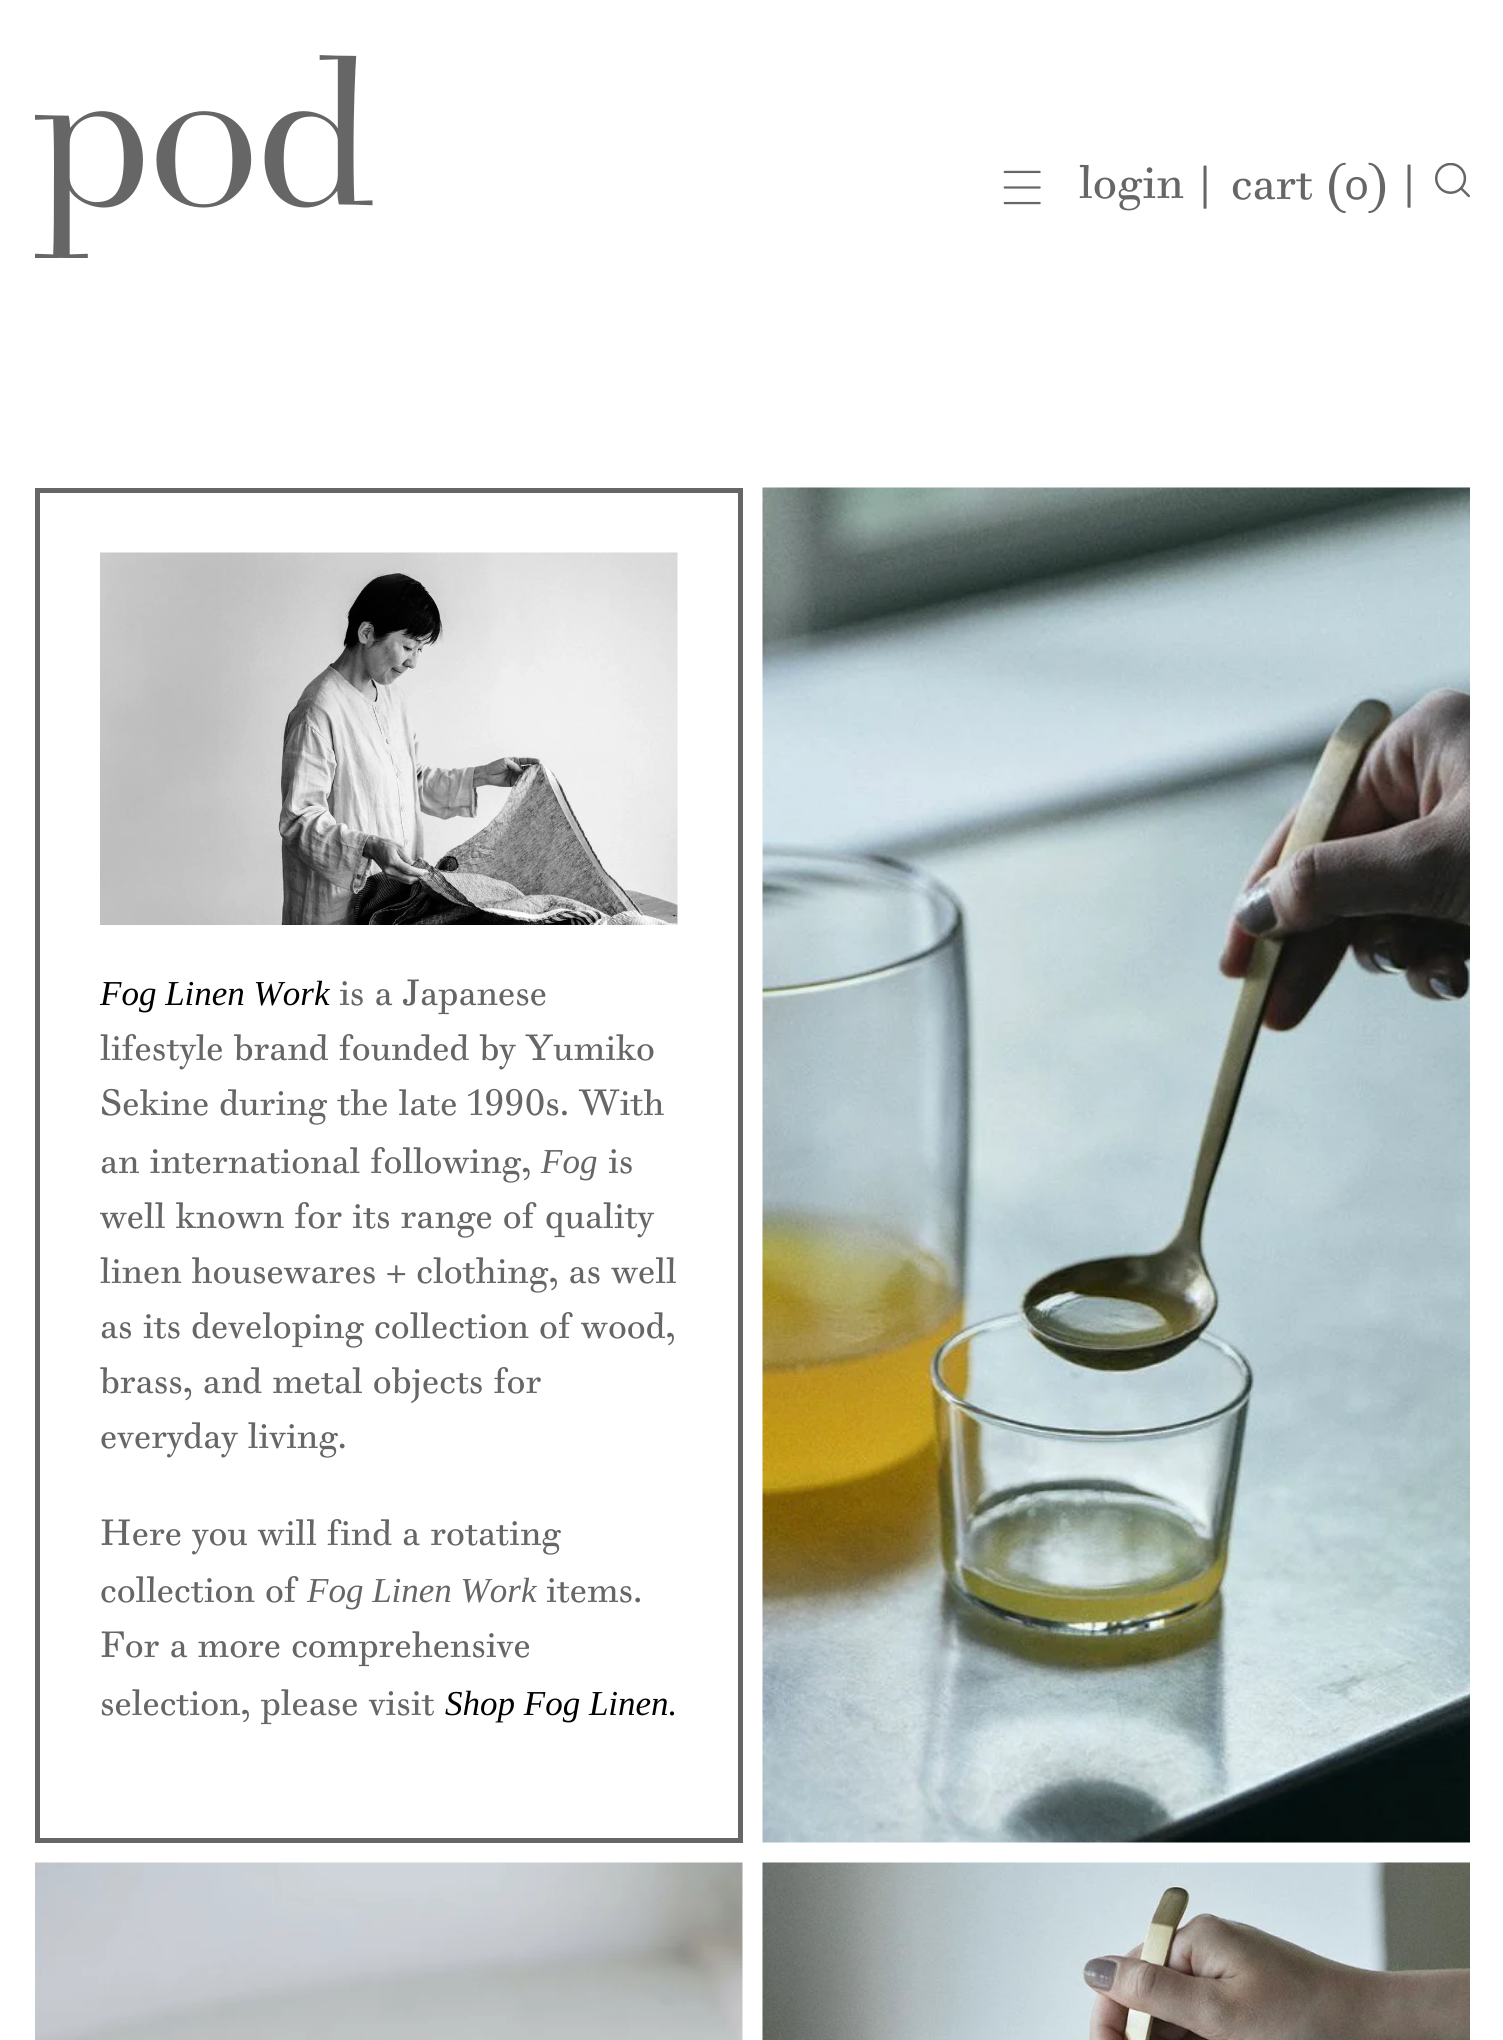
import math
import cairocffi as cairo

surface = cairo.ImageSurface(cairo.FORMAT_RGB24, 1503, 2040)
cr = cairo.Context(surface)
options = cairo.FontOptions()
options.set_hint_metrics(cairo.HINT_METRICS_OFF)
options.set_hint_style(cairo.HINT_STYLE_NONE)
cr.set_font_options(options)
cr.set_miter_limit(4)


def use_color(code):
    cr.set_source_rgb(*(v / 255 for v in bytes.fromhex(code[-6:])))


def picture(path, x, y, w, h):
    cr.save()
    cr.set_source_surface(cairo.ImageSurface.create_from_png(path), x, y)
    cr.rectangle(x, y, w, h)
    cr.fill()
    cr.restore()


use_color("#ffffff")
cr.paint()
picture("img1.png", 35, 55, 338, 203)
picture("img2.png", 1003, 170, 38, 35)
cr.select_font_face("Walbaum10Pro")
cr.set_font_size(45)
use_color("#666666")
cr.move_to(1079, 198)
cr.show_text("login")
cr.move_to(1199, 199)
cr.show_text("|")
cr.move_to(1231, 199)
cr.show_text("cart (")
cr.select_font_face("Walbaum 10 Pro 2")
cr.move_to(1344, 199)
cr.show_text("0")
cr.select_font_face("Walbaum10Pro")
cr.move_to(1370, 199)
cr.show_text(")")
cr.move_to(1403, 198)
cr.show_text("|")
picture("img3.png", 1435, 163, 35, 35)
cr.rectangle(37.5, 490.5, 703, 1350)
cr.set_line_width(5)
cr.stroke()
picture("img4.png", 100, 552, 578, 373)
cr.select_font_face("Liberation Serif", cairo.FONT_SLANT_ITALIC)
cr.set_font_size(35)
use_color("#000000")
cr.move_to(100, 1005)
cr.show_text("Fog Linen Work")
cr.select_font_face("Walbaum10Pro")
use_color("#666666")
cr.move_to(339, 1005)
cr.show_text("is a Japanese")
cr.move_to(100, 1060)
cr.show_text("lifestyle brand founded by Yumiko")
cr.move_to(100, 1115)
cr.show_text("Sekine during the late 1990s. With")
cr.move_to(100, 1173)
cr.show_text("an international following,")
cr.select_font_face("Liberation Serif", cairo.FONT_SLANT_ITALIC)
cr.move_to(541, 1173)
cr.show_text("Fog")
cr.select_font_face("Walbaum10Pro")
cr.move_to(608, 1173)
cr.show_text("is")
cr.move_to(100, 1228)
cr.show_text("well known for its range of quality")
cr.move_to(100, 1283)
cr.show_text("linen housewares + clothing, as well")
cr.move_to(100, 1338)
cr.show_text("as its developing collection of wood,")
cr.move_to(100, 1393)
cr.show_text("brass, and metal objects for")
cr.move_to(100, 1448)
cr.show_text("everyday living.")
cr.move_to(100, 1545)
cr.show_text("Here you will find a rotating")
cr.move_to(100, 1602)
cr.show_text("collection of")
cr.select_font_face("Liberation Serif", cairo.FONT_SLANT_ITALIC)
cr.move_to(307, 1602)
cr.show_text("Fog Linen Work")
cr.select_font_face("Walbaum10Pro")
cr.move_to(546, 1602)
cr.show_text("items.")
cr.move_to(100, 1657)
cr.show_text("For a more comprehensive")
cr.move_to(100, 1715)
cr.show_text("selection, please visit")
cr.select_font_face("Liberation Serif", cairo.FONT_SLANT_ITALIC)
use_color("#000000")
cr.move_to(445, 1715)
cr.show_text("Shop Fog Linen.")
picture("img5.png", 762, 487, 708, 1356)
picture("img6.png", 35, 1862, 708, 178)
picture("img7.png", 762, 1862, 708, 178)
surface.write_to_png("result.png")
